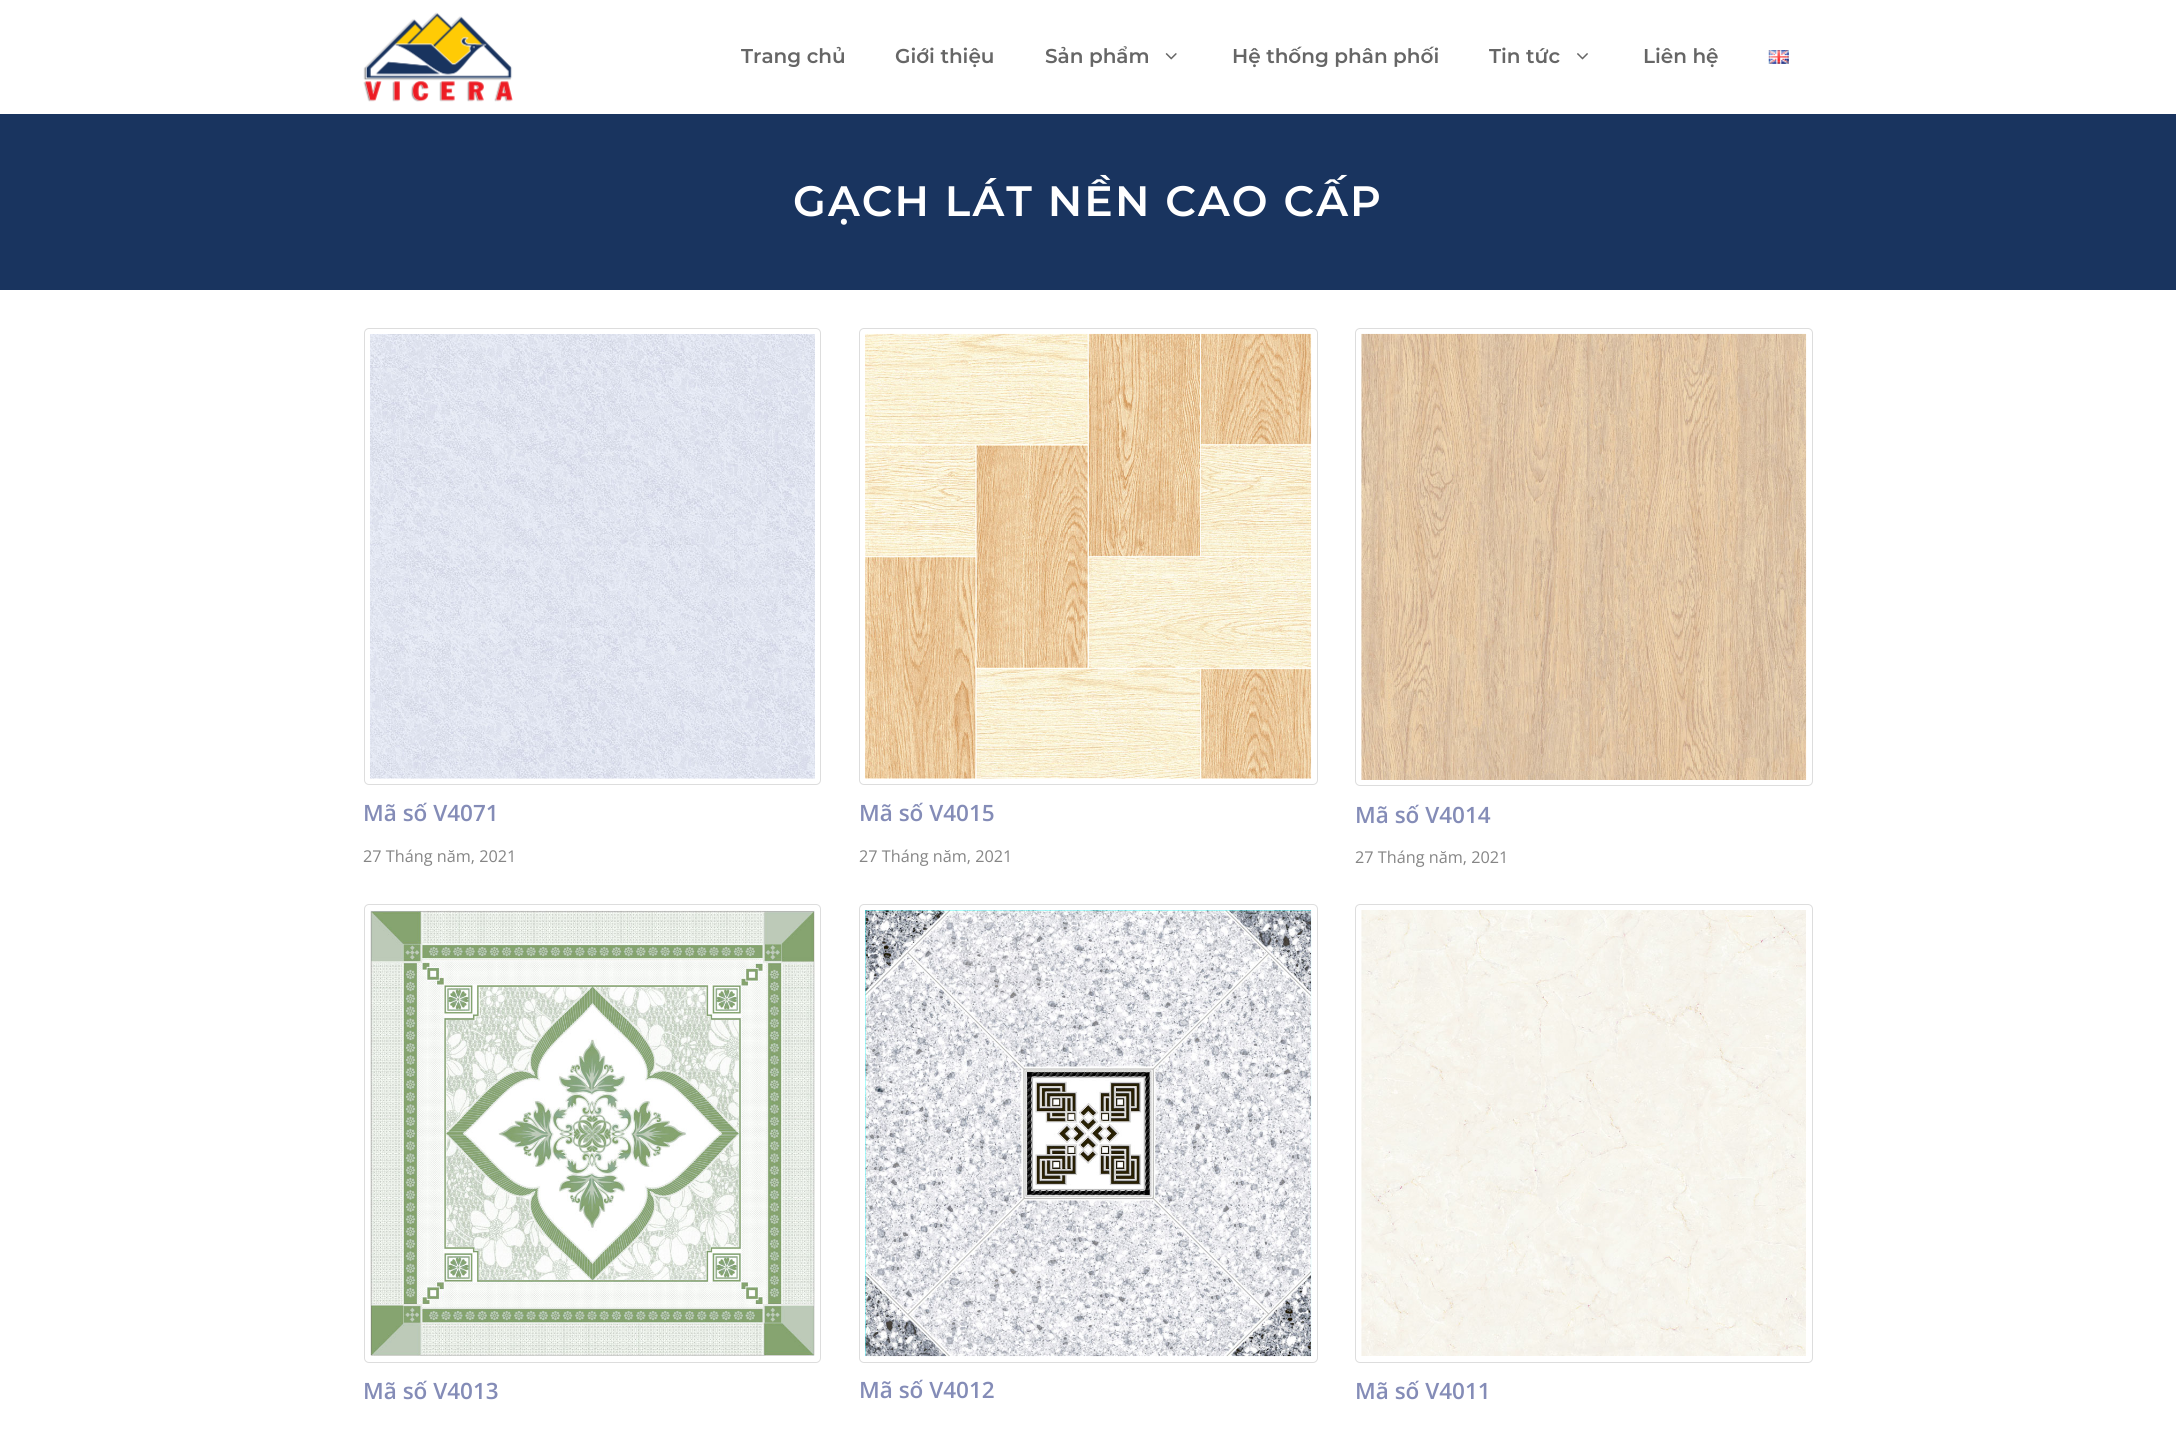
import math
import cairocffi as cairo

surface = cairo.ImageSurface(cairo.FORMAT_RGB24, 2176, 1433)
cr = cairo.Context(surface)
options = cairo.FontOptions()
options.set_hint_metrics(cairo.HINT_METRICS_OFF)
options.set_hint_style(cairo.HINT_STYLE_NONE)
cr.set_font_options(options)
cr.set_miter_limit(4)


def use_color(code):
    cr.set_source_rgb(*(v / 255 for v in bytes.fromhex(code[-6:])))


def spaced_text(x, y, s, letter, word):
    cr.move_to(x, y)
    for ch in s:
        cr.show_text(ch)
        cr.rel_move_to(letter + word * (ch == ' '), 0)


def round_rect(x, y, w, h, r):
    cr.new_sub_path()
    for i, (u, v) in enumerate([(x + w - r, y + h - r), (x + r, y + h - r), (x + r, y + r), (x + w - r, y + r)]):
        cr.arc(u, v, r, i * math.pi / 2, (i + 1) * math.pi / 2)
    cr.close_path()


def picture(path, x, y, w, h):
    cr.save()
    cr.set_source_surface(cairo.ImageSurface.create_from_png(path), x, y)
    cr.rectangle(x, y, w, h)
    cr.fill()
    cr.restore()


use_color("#ffffff")
cr.paint()
picture("img1.png", 363, 12, 150, 90)
cr.select_font_face("Montserrat SemiBold")
cr.set_font_size(20)
use_color("#666666")
cr.move_to(741, 63)
cr.show_text("Trang chủ")
cr.move_to(895, 63)
cr.show_text("Giới thiệu")
cr.move_to(1045, 63)
cr.show_text("Sản phẩm")
picture("img2.png", 1165, 53, 12, 7)
cr.move_to(1232, 63)
cr.show_text("Hệ thống phân phối")
cr.move_to(1489, 63)
cr.show_text("Tin tức")
picture("img3.png", 1577, 53, 11, 7)
cr.move_to(1643, 63)
cr.show_text("Liên hệ")
picture("img4.png", 1768, 50, 21, 14)
use_color("#19345f")
cr.rectangle(0, 114, 2176, 176)
cr.fill()
cr.set_font_size(42.5)
use_color("#ffffff")
spaced_text(793, 216, "GẠCH LÁT NỀN CAO CẤP", 2.1, 0)
round_rect(364.5, 328.5, 456, 456, 4.5)
use_color("#dddddd")
cr.set_line_width(1)
cr.stroke()
picture("img5.png", 370, 334, 445, 445)
cr.select_font_face("Open Sans SemiBold")
cr.set_font_size(22.5)
use_color("#848cb7")
cr.move_to(363, 821)
cr.show_text("Mã số V4071")
cr.select_font_face("Open Sans")
cr.set_font_size(16.25)
use_color("#858585")
cr.move_to(363, 862)
cr.show_text("27 Tháng năm, 2021")
round_rect(859.5, 328.5, 458, 456, 4.5)
use_color("#dddddd")
cr.stroke()
picture("img6.png", 865, 333, 447, 446)
cr.select_font_face("Open Sans SemiBold")
cr.set_font_size(22.5)
use_color("#848cb7")
cr.move_to(859, 821)
cr.show_text("Mã số V4015")
cr.select_font_face("Open Sans")
cr.set_font_size(16.25)
use_color("#858585")
cr.move_to(859, 862)
cr.show_text("27 Tháng năm, 2021")
round_rect(1355.5, 328.5, 457, 457, 4.5)
use_color("#dddddd")
cr.stroke()
picture("img7.png", 1361, 333, 446, 447)
cr.select_font_face("Open Sans SemiBold")
cr.set_font_size(22.5)
use_color("#848cb7")
cr.move_to(1355, 823)
cr.show_text("Mã số V4014")
cr.select_font_face("Open Sans")
cr.set_font_size(16.25)
use_color("#858585")
cr.move_to(1355, 863)
cr.show_text("27 Tháng năm, 2021")
round_rect(364.5, 904.5, 456, 458, 4.5)
use_color("#dddddd")
cr.stroke()
picture("img8.png", 370, 910, 445, 446)
cr.select_font_face("Open Sans SemiBold")
cr.set_font_size(22.5)
use_color("#848cb7")
cr.move_to(363, 1399)
cr.show_text("Mã số V4013")
round_rect(859.5, 904.5, 458, 458, 4.5)
use_color("#dddddd")
cr.stroke()
picture("img9.png", 865, 910, 447, 447)
use_color("#848cb7")
cr.move_to(859, 1398)
cr.show_text("Mã số V4012")
round_rect(1355.5, 904.5, 457, 458, 4.5)
use_color("#dddddd")
cr.stroke()
picture("img10.png", 1361, 910, 445, 446)
use_color("#848cb7")
cr.move_to(1355, 1399)
cr.show_text("Mã số V4011")
surface.write_to_png("result.png")
